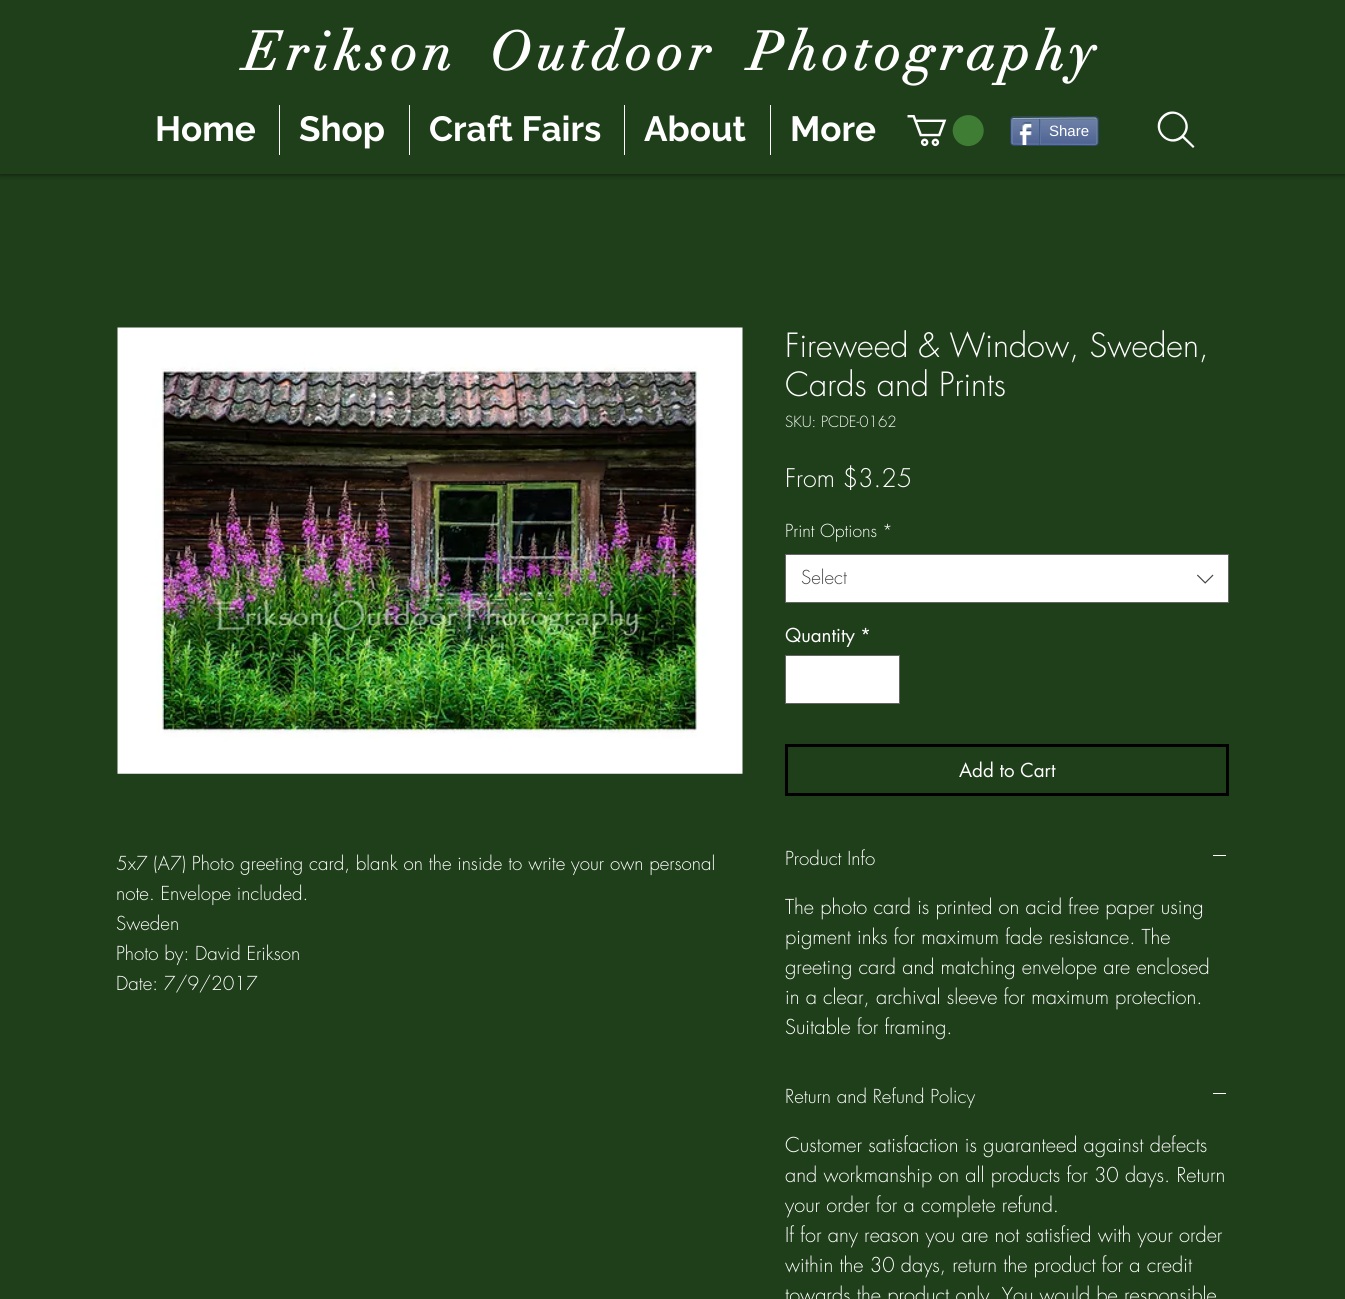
import math
import cairocffi as cairo

surface = cairo.ImageSurface(cairo.FORMAT_RGB24, 1345, 1299)
cr = cairo.Context(surface)
options = cairo.FontOptions()
options.set_hint_metrics(cairo.HINT_METRICS_OFF)
options.set_hint_style(cairo.HINT_STYLE_NONE)
cr.set_font_options(options)
cr.set_miter_limit(4)


def use_color(code):
    cr.set_source_rgb(*(v / 255 for v in bytes.fromhex(code[-6:])))


def spaced_text(x, y, s, letter, word):
    cr.move_to(x, y)
    for ch in s:
        cr.show_text(ch)
        cr.rel_move_to(letter + word * (ch == ' '), 0)


def round_rect(x, y, w, h, r):
    cr.new_sub_path()
    for i, (u, v) in enumerate([(x + w - r, y + h - r), (x + r, y + h - r), (x + r, y + r), (x + w - r, y + r)]):
        cr.arc(u, v, r, i * math.pi / 2, (i + 1) * math.pi / 2)
    cr.close_path()


def shadow(x, y, w, h, r, blur, alpha):
    cr.push_group_with_content(cairo.CONTENT_ALPHA)
    cr.set_operator(cairo.OPERATOR_SOURCE)
    for i in range(15, -16, -2):
        e = blur * i / 6
        if min(w, h) + 2 * e > 0:
            cr.set_source_rgba(0, 0, 0, alpha * math.erfc((i - 1) / 8.5) / 2)
            round_rect(x - e, y - e, w + 2 * e, h + 2 * e, max(0, min(r + e + blur * .6, min(w, h) / 2 + e)))
            cr.fill()
    cr.mask(cr.pop_group())


def picture(path, x, y, w, h):
    cr.save()
    cr.set_source_surface(cairo.ImageSurface.create_from_png(path), x, y)
    cr.rectangle(x, y, w, h)
    cr.fill()
    cr.restore()


use_color("#1f3e1a")
cr.paint()
use_color("#000000")
shadow(0, 0, 1345, 174, 0, 3, 0.7)
use_color("#1f3e1a")
cr.rectangle(0, 0, 1345, 174)
cr.fill()
cr.select_font_face("didot", cairo.FONT_SLANT_NORMAL, cairo.FONT_WEIGHT_BOLD)
cr.set_font_size(53.75)
use_color("#ffffff")
spaced_text(244, 70, "Erikson", 5.4, 0)
spaced_text(490, 70, "Outdoor", 5.4, 0)
spaced_text(749, 70, "Photography", 5.4, 0)
cr.select_font_face("Raleway", cairo.FONT_SLANT_NORMAL, cairo.FONT_WEIGHT_BOLD)
cr.set_font_size(35)
cr.move_to(155, 141)
cr.show_text("Home")
cr.rectangle(279, 105, 1, 50)
cr.fill()
cr.move_to(299, 141)
cr.show_text("Shop")
cr.rectangle(409, 105, 1, 50)
cr.fill()
cr.move_to(429, 141)
cr.show_text("Craft Fairs")
cr.rectangle(624, 105, 1, 50)
cr.fill()
cr.move_to(644, 141)
cr.show_text("About")
cr.rectangle(770, 105, 1, 50)
cr.fill()
cr.move_to(790, 141)
cr.show_text("More")
picture("img1.png", 907, 115, 77, 32)
round_rect(1010.5, 116.5, 88, 29, 3.5)
use_color("#2d4565")
cr.set_line_width(1)
cr.stroke()
picture("img2.png", 1011, 118, 87, 28)
cr.new_path()
cr.move_to(1012.5, 118.5)
cr.line_to(1081.5, 118)
cr.line_to(1095, 118)
cr.line_to(1096.5, 118.5)
use_color("#9aabc6")
cr.set_line_width(1.2)
cr.stroke()
cr.new_path()
cr.move_to(1096.5, 118.5)
cr.line_to(1097, 120)
cr.line_to(1097, 142.5)
cr.line_to(1096.5, 144)
use_color("#6f83ad")
cr.stroke()
cr.new_path()
cr.move_to(1096.5, 144)
cr.line_to(1095, 144.5)
cr.line_to(1012.5, 144)
use_color("#6176a3")
cr.stroke()
cr.new_path()
cr.move_to(1012.5, 144)
cr.line_to(1012, 142.5)
cr.line_to(1012, 120)
cr.line_to(1012.5, 118.5)
use_color("#6f83ad")
cr.stroke()
picture("img3.png", 1019, 122, 13, 23)
use_color("#425e85")
cr.rectangle(1039, 119, 1, 26)
cr.fill()
cr.select_font_face("Liberation Sans")
cr.set_font_size(15)
use_color("#ffffff")
cr.move_to(1049, 136)
cr.show_text("Share")
use_color("#6176a3")
cr.rectangle(1040, 119, 1, 25)
cr.fill()
use_color("#ffffff")
cr.set_fill_rule(cairo.FILL_RULE_EVEN_ODD)
cr.new_path()
cr.move_to(1164, 135.5)
cr.curve_to(1152, 123.5, 1170, 106, 1181.5, 117.5)
cr.curve_to(1193.5, 129.5, 1175.5, 147, 1164, 135.5)
cr.close_path()
cr.move_to(1194.5, 146.5)
cr.line_to(1184, 136)
cr.curve_to(1196.5, 122, 1175.5, 102.5, 1162, 116)
cr.curve_to(1149, 129.5, 1168, 150, 1182.5, 138)
cr.line_to(1193, 148)
cr.close_path()
cr.fill()
picture("img4.png", 117, 327, 626, 447)
cr.select_font_face("futura Light")
cr.set_font_size(18.75)
cr.move_to(116, 870)
cr.show_text("5x7 (A7) Photo greeting card, blank on the inside to write your own personal")
cr.move_to(116, 900)
cr.show_text("note. Envelope included.")
cr.move_to(116, 930)
cr.show_text("Sweden")
cr.move_to(116, 960)
cr.show_text("Photo by: David Erikson")
cr.move_to(116, 990)
cr.show_text("Date: 7/9/2017")
cr.set_font_size(32.5)
cr.move_to(785, 357)
cr.show_text("Fireweed & Window, Sweden,")
cr.move_to(785, 396)
cr.show_text("Cards and Prints")
cr.set_font_size(15)
cr.move_to(785, 427)
cr.show_text("SKU: PCDE-0162")
cr.set_font_size(25)
cr.move_to(785, 487)
cr.show_text("From $3.25")
cr.set_font_size(17.5)
cr.move_to(785, 537)
cr.show_text("Print Options")
cr.move_to(882, 537)
cr.show_text("*")
cr.rectangle(785.5, 554.5, 443, 48)
cr.fill_preserve()
use_color("#666666")
cr.set_line_width(1)
cr.stroke()
cr.set_font_size(18.75)
use_color("#444444")
cr.move_to(801, 584)
cr.show_text("Select")
picture("img5.png", 1197, 574, 17, 10)
cr.select_font_face("futura")
use_color("#ffffff")
cr.move_to(785, 642)
cr.show_text("Quantity")
cr.move_to(860, 642)
cr.show_text("*")
cr.rectangle(785.5, 655.5, 114, 48)
cr.fill_preserve()
use_color("#666666")
cr.stroke()
cr.rectangle(786.5, 745.5, 441, 49)
use_color("#000000")
cr.set_line_width(3)
cr.stroke()
use_color("#ffffff")
cr.move_to(959, 777)
cr.show_text("Add to Cart")
cr.select_font_face("futura Light")
cr.move_to(785, 865)
cr.show_text("Product Info")
cr.rectangle(1213, 855, 13, 1)
cr.fill()
cr.set_font_size(20)
cr.move_to(785, 914)
cr.show_text("The photo card is printed on acid free paper using")
cr.move_to(785, 944)
cr.show_text("pigment inks for maximum fade resistance. The")
cr.move_to(785, 974)
cr.show_text("greeting card and matching envelope are enclosed")
cr.move_to(785, 1004)
cr.show_text("in a clear, archival sleeve for maximum protection.")
cr.move_to(785, 1034)
cr.show_text("Suitable for framing.")
cr.set_font_size(18.75)
cr.move_to(785, 1103)
cr.show_text("Return and Refund Policy")
cr.rectangle(1213, 1093, 13, 1)
cr.fill()
cr.set_font_size(20)
cr.move_to(785, 1152)
cr.show_text("Customer satisfaction is guaranteed against defects")
cr.move_to(785, 1182)
cr.show_text("and workmanship on all products for 30 days. Return")
cr.move_to(785, 1212)
cr.show_text("your order for a complete refund.")
cr.move_to(785, 1242)
cr.show_text("If for any reason you are not satisfied with your order")
cr.move_to(785, 1272)
cr.show_text("within the 30 days, return the product for a credit")
cr.move_to(785, 1302)
cr.show_text("towards the product only. You would be responsible")
surface.write_to_png("result.png")
